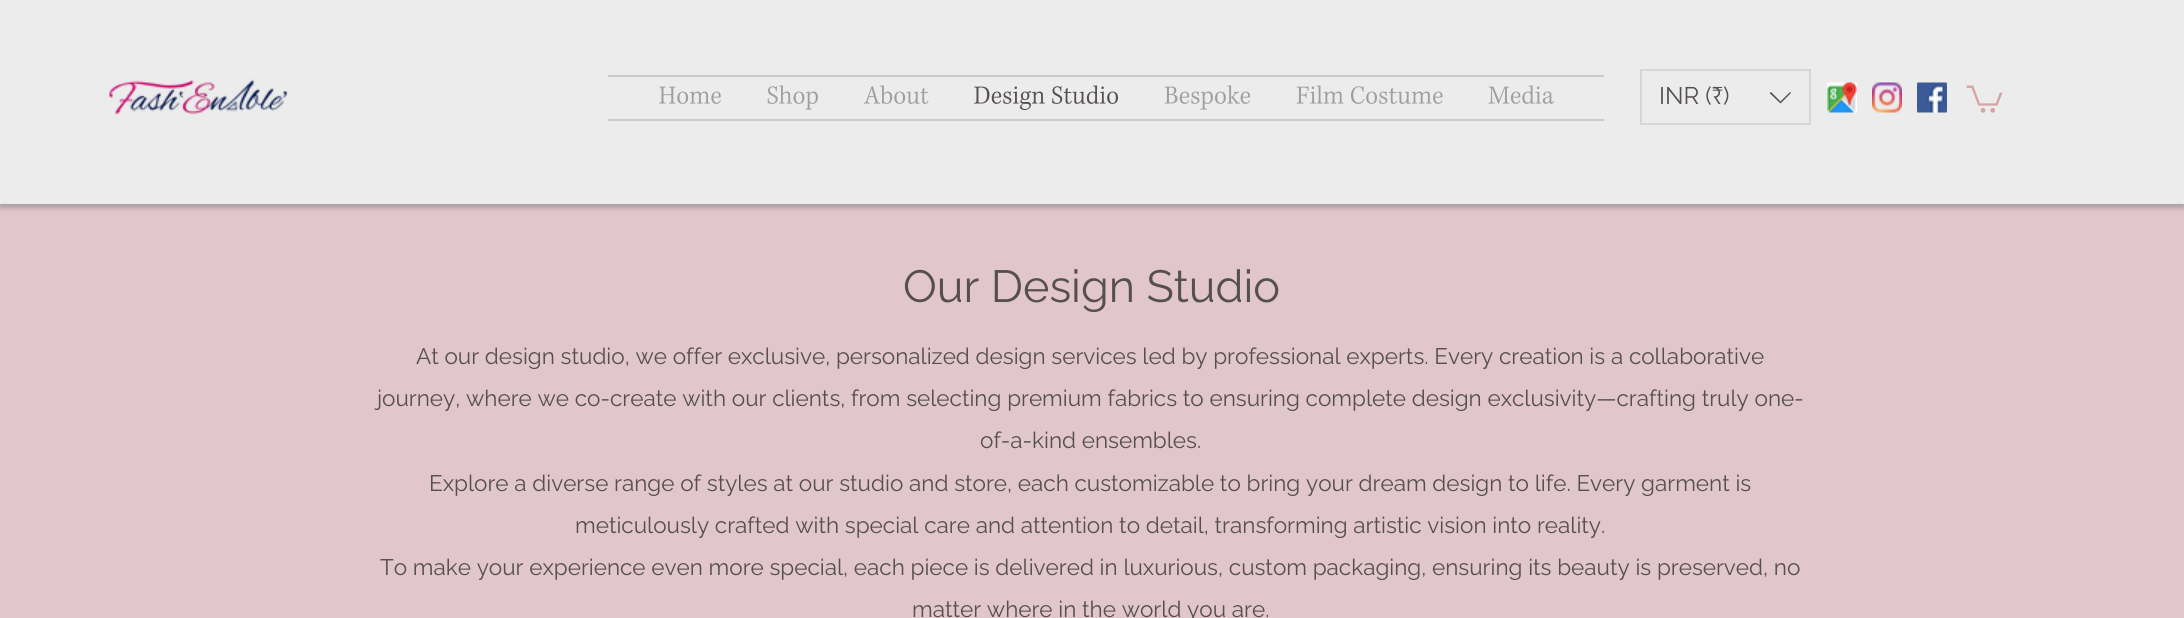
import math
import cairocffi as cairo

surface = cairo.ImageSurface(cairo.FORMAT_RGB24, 2184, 618)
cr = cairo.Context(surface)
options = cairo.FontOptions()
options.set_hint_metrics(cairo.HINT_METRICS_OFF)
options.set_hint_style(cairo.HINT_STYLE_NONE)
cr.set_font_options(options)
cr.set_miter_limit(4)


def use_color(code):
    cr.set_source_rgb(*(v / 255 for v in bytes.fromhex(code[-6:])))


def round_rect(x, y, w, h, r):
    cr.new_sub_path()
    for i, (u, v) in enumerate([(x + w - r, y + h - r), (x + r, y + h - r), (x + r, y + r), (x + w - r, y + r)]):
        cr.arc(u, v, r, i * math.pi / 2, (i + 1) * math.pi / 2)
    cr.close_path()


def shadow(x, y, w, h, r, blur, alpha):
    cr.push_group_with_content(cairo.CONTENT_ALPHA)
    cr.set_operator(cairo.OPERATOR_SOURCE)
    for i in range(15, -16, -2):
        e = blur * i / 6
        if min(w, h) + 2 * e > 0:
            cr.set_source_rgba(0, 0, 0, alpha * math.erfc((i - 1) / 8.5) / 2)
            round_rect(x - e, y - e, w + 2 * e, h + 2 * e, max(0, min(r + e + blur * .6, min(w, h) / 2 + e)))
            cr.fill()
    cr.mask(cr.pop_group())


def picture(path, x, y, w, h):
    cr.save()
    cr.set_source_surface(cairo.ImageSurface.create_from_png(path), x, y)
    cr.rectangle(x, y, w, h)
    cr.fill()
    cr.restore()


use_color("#ececec")
cr.paint()
use_color("#e2c6ce")
cr.rectangle(0, 206, 2184, 412)
cr.fill()
cr.save()
cr.rectangle(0, 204, 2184, 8)
cr.clip()
use_color("#000000")
shadow(0, 0, 2184, 204, 0, 4, 0.7)
cr.restore()
picture("img1.png", 109, 79, 179, 36)
use_color("#cacaca")
cr.rectangle(608, 75, 996, 2)
cr.fill()
cr.rectangle(608, 119, 996, 2)
cr.fill()
picture("img2.png", 659, 86, 62, 18)
picture("img3.png", 767, 85, 51, 25)
picture("img4.png", 863, 85, 66, 19)
picture("img5.png", 974, 85, 144, 25)
picture("img6.png", 1164, 85, 86, 25)
picture("img7.png", 1296, 85, 147, 19)
picture("img8.png", 1488, 85, 66, 19)
cr.rectangle(1641, 70, 169, 54)
use_color("#d6d7d6")
cr.stroke()
cr.select_font_face("Raleway")
cr.set_font_size(24)
use_color("#554f4f")
cr.move_to(1659, 104)
cr.show_text("INR (₹)")
cr.set_fill_rule(cairo.FILL_RULE_EVEN_ODD)
cr.new_path()
cr.move_to(1790, 92)
cr.line_to(1791, 93)
cr.line_to(1780.5, 103.5)
cr.line_to(1769.5, 93)
cr.line_to(1771, 92)
cr.line_to(1780.5, 101.5)
cr.close_path()
cr.fill()
picture("img9.png", 1827, 82, 30, 31)
picture("img10.png", 1872, 82, 30, 31)
picture("img11.png", 1917, 82, 30, 31)
picture("img12.png", 1966, 85, 37, 28)
cr.set_font_size(45)
cr.move_to(903, 302)
cr.show_text("Our Design Studio")
cr.set_font_size(22.5)
cr.move_to(416, 364)
cr.show_text("At our design studio, we offer exclusive, personalized design services led by professional experts. Every creation is a collaborative")
cr.move_to(377, 406)
cr.show_text("journey, where we co-create with our clients, from selecting premium fabrics to ensuring complete design exclusivity—crafting truly one-")
cr.move_to(980, 448)
cr.show_text("of-a-kind ensembles.")
cr.move_to(429, 491)
cr.show_text("Explore a diverse range of styles at our studio and store, each customizable to bring your dream design to life. Every garment is")
cr.move_to(575, 533)
cr.show_text("meticulously crafted with special care and attention to detail, transforming artistic vision into reality.")
cr.move_to(380, 575)
cr.show_text("To make your experience even more special, each piece is delivered in luxurious, custom packaging, ensuring its beauty is preserved, no")
cr.move_to(912, 617)
cr.show_text("matter where in the world you are.")
surface.write_to_png("result.png")
